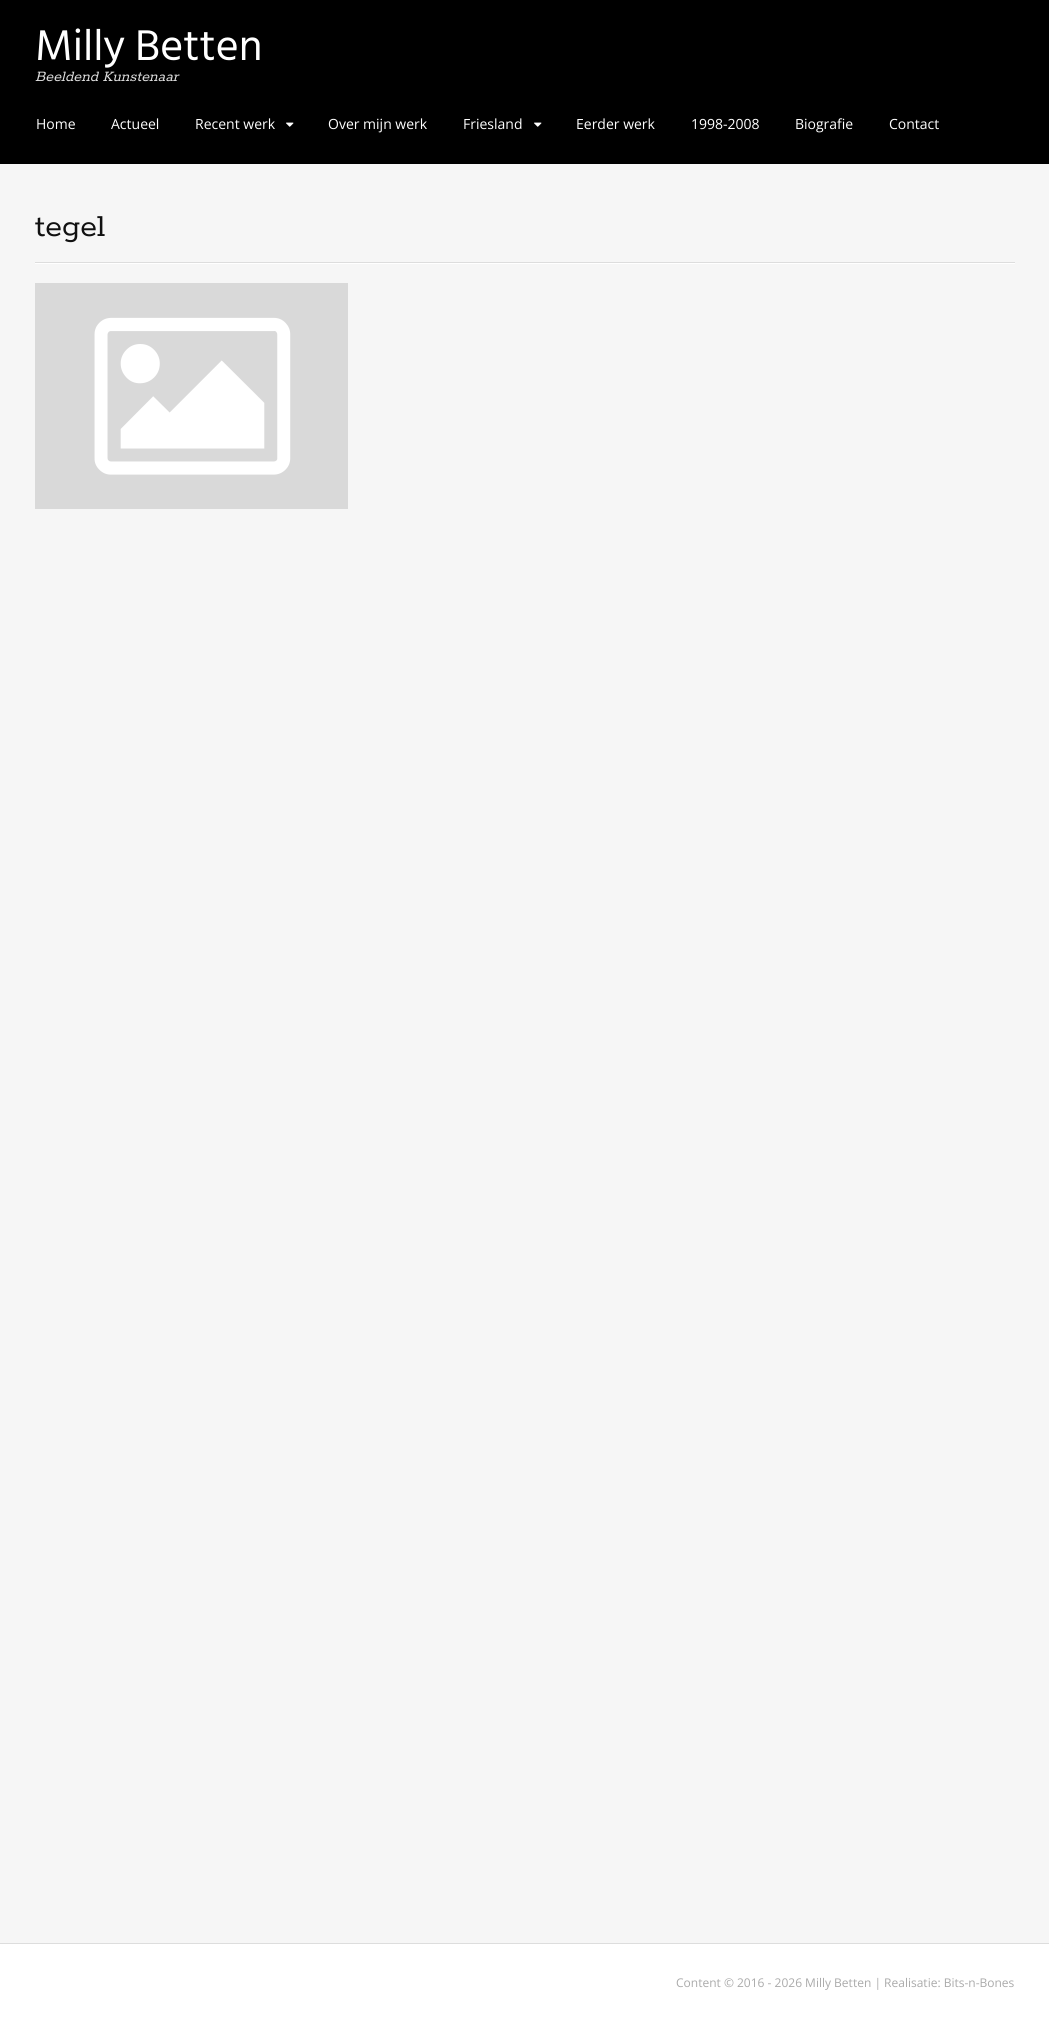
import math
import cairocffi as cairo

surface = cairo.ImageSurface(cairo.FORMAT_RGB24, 1049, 2022)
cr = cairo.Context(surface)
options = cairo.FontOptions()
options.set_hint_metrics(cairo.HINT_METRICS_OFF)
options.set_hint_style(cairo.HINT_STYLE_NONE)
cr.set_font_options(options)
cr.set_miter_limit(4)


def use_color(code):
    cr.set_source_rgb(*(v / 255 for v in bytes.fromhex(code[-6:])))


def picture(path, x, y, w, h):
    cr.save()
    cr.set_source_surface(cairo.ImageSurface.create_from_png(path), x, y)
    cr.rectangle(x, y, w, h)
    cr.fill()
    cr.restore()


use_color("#f6f6f6")
cr.paint()
use_color("#000000")
cr.rectangle(0, 0, 1049, 164)
cr.fill()
cr.select_font_face("Hind Siliguri")
cr.set_font_size(44)
use_color("#ffffff")
cr.move_to(35, 60)
cr.show_text("Milly Betten")
cr.select_font_face("Rokkitt", cairo.FONT_SLANT_ITALIC)
cr.set_font_size(16)
use_color("#dddddd")
cr.move_to(35, 81)
cr.show_text("Beeldend Kunstenaar")
cr.select_font_face("Open Sans")
cr.set_font_size(14)
use_color("#ffffff")
cr.move_to(36, 129)
cr.show_text("Home")
cr.move_to(111, 129)
cr.show_text("Actueel")
cr.move_to(195, 129)
cr.show_text("Recent werk")
picture("img1.png", 286, 122, 8, 5)
cr.move_to(328, 129)
cr.show_text("Over mijn werk")
cr.move_to(463, 129)
cr.show_text("Friesland")
picture("img1.png", 534, 122, 8, 5)
cr.move_to(576, 129)
cr.show_text("Eerder werk")
cr.move_to(691, 129)
cr.show_text("1998-2008")
cr.move_to(795, 129)
cr.show_text("Biografie")
cr.move_to(889, 129)
cr.show_text("Contact")
cr.rectangle(35, 263, 980, 1)
cr.fill()
use_color("#dddddd")
cr.rectangle(35, 262, 980, 1)
cr.fill()
cr.select_font_face("Rokkitt")
cr.set_font_size(34)
use_color("#111111")
cr.move_to(35, 236)
cr.show_text("tegel")
use_color("#d9d9d9")
cr.rectangle(35, 283, 313, 226)
cr.fill()
picture("img2.png", 94, 317, 197, 158)
use_color("#ffffff")
cr.rectangle(0, 1944, 1049, 78)
cr.fill()
use_color("#dddddd")
cr.rectangle(0, 1943, 1049, 1)
cr.fill()
cr.select_font_face("Open Sans")
cr.set_font_size(12)
use_color("#aaaaaa")
cr.move_to(676, 1987)
cr.show_text("Content © 2016 - 2026 Milly Betten | Realisatie: Bits-n-Bones")
surface.write_to_png("result.png")
